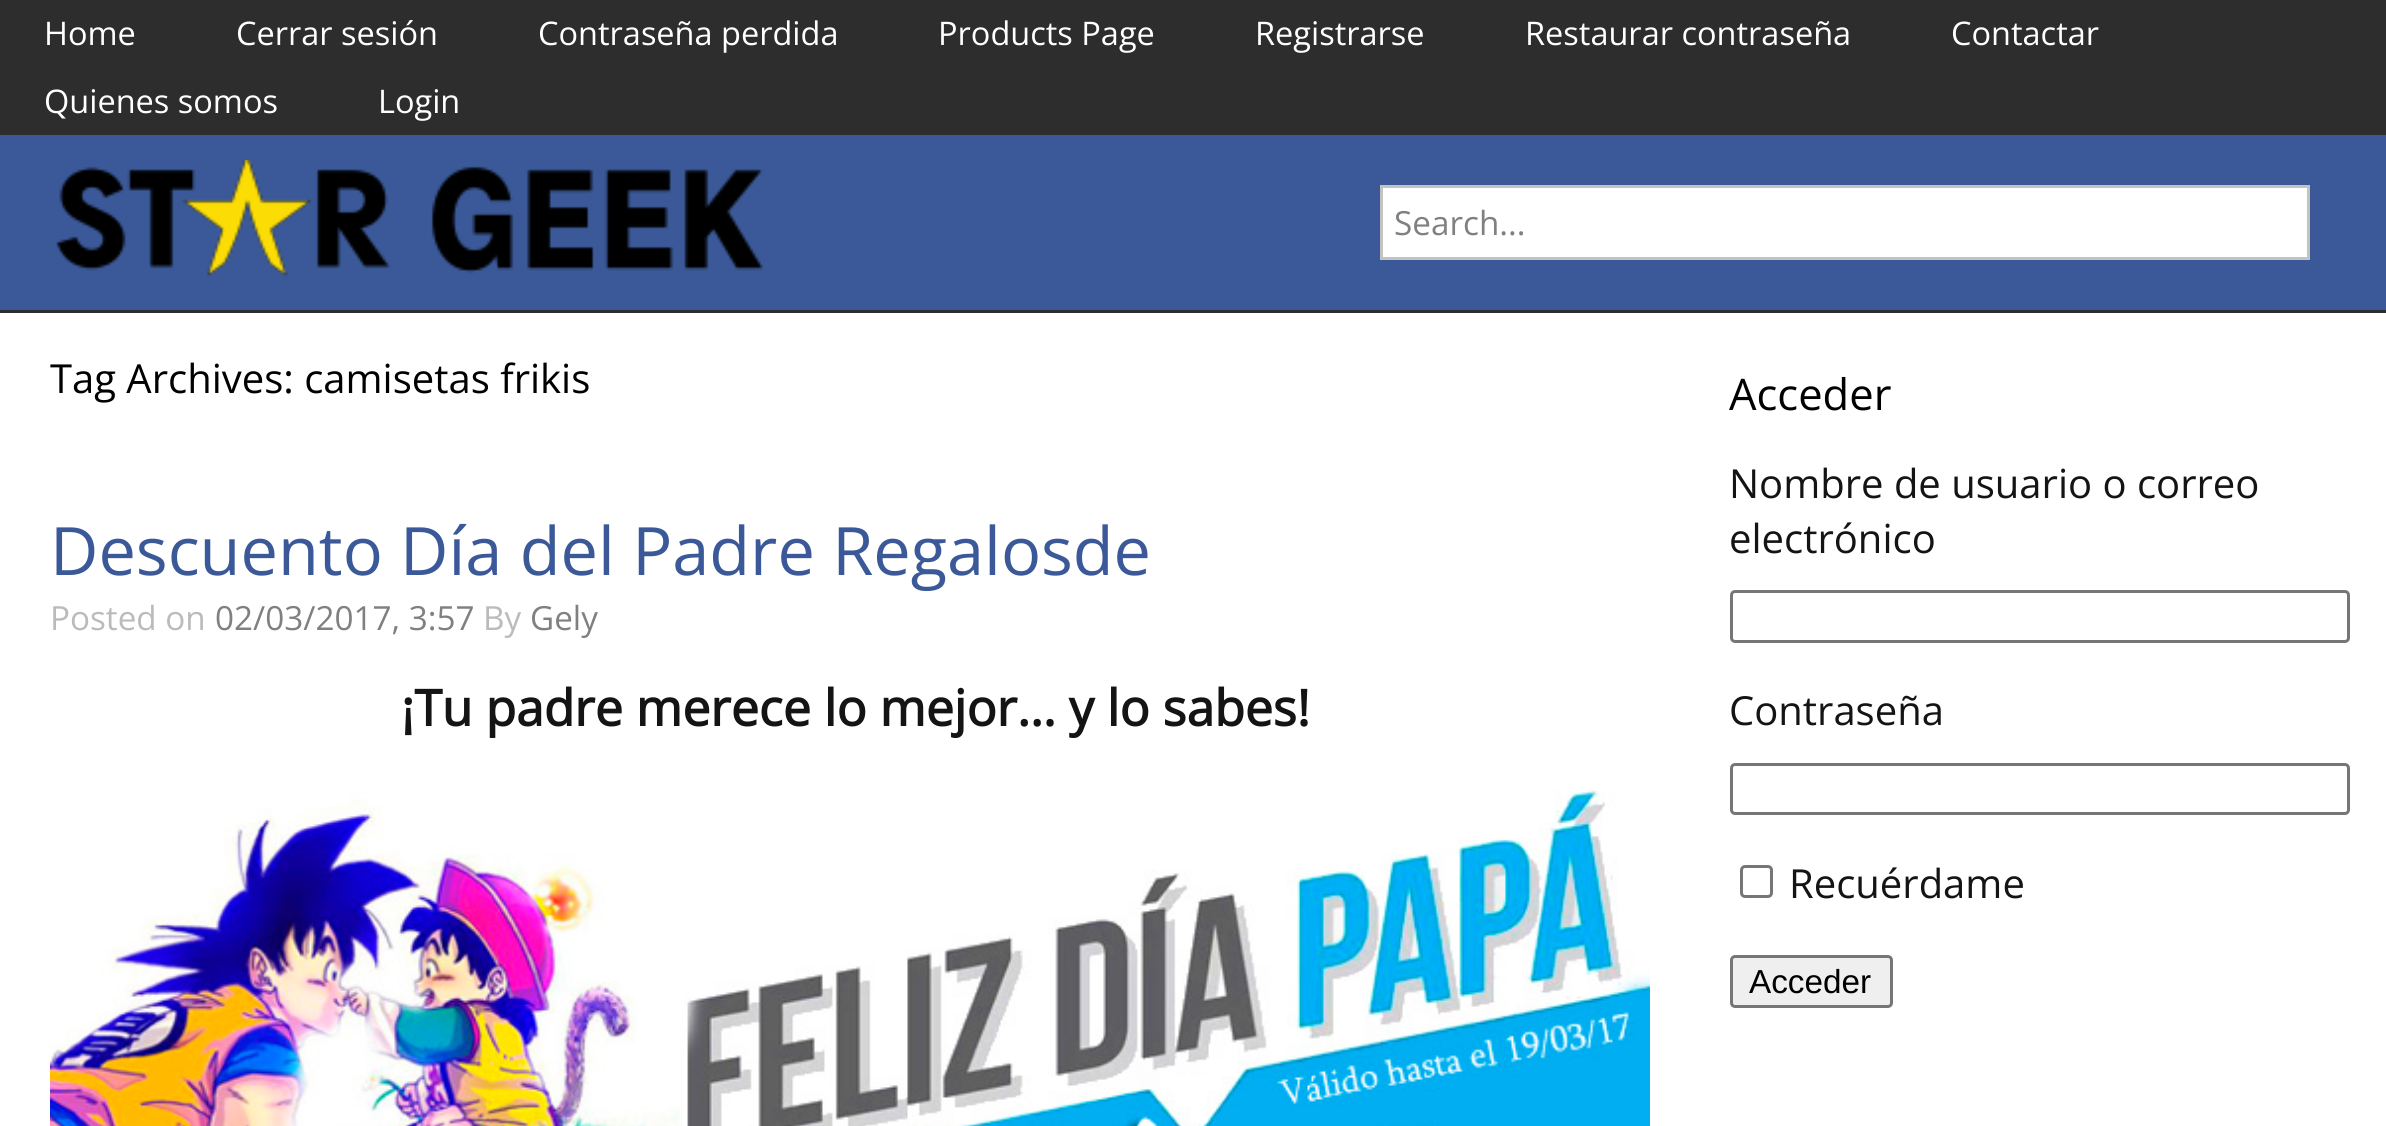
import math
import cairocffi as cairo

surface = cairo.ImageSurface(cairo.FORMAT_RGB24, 2386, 1126)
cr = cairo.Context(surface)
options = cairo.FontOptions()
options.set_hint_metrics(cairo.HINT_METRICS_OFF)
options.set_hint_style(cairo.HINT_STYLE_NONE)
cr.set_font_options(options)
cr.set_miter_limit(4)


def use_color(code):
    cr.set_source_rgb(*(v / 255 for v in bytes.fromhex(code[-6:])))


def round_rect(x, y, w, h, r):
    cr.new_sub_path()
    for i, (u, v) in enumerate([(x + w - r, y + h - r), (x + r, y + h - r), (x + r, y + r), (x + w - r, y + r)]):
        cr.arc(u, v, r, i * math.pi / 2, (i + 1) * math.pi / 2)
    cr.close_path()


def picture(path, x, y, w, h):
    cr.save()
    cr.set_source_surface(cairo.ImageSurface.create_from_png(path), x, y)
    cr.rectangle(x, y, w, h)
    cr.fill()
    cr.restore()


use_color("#ffffff")
cr.paint()
use_color("#2d2d2d")
cr.rectangle(0, 0, 2386, 135)
cr.fill()
cr.select_font_face("Open Sans")
cr.set_font_size(32.5)
use_color("#ffffff")
cr.move_to(44, 45)
cr.show_text("Home")
cr.move_to(236, 45)
cr.show_text("Cerrar sesión")
cr.move_to(538, 45)
cr.show_text("Contraseña perdida")
cr.move_to(938, 45)
cr.show_text("Products Page")
cr.move_to(1255, 45)
cr.show_text("Registrarse")
cr.move_to(1525, 45)
cr.show_text("Restaurar contraseña")
cr.move_to(1951, 45)
cr.show_text("Contactar")
cr.move_to(44, 113)
cr.show_text("Quienes somos")
cr.move_to(378, 113)
cr.show_text("Login")
use_color("#3b5998")
cr.rectangle(0, 135, 2386, 175)
cr.fill()
use_color("#2d2d2d")
cr.rectangle(0, 310, 2386, 3)
cr.fill()
picture("img1.png", 55, 160, 709, 118)
use_color("#ffffff")
cr.rectangle(1381.5, 186.5, 927, 72)
cr.fill_preserve()
use_color("#c3c3c3")
cr.set_line_width(3)
cr.stroke()
cr.set_font_size(33.25)
use_color("#808080")
cr.move_to(1394, 235)
cr.show_text("Search...")
cr.set_font_size(40)
use_color("#000000")
cr.move_to(50, 393)
cr.show_text("Tag Archives: camisetas frikis")
cr.set_font_size(66.7)
use_color("#3b5998")
cr.move_to(50, 575)
cr.show_text("Descuento Día del Padre Regalosde")
cr.set_font_size(33.25)
use_color("#bbbbbb")
cr.move_to(50, 630)
cr.show_text("Posted on")
use_color("#808080")
cr.move_to(215, 630)
cr.show_text("02/03/2017, 3:57")
use_color("#bbbbbb")
cr.move_to(483, 630)
cr.show_text("By")
use_color("#808080")
cr.move_to(530, 630)
cr.show_text("Gely")
cr.select_font_face("Open Sans", cairo.FONT_SLANT_NORMAL, cairo.FONT_WEIGHT_BOLD)
cr.set_font_size(50)
use_color("#141414")
cr.move_to(401, 726)
cr.show_text("¡Tu padre merece lo mejor… y lo sabes!")
picture("img2.png", 50, 790, 1600, 336)
cr.select_font_face("Open Sans")
cr.set_font_size(43.5)
use_color("#000000")
cr.move_to(1729, 410)
cr.show_text("Acceder")
cr.set_font_size(40)
use_color("#141414")
cr.move_to(1729, 498)
cr.show_text("Nombre de usuario o correo")
cr.move_to(1729, 553)
cr.show_text("electrónico")
round_rect(1731.5, 591.5, 617, 50, 3.5)
use_color("#767676")
cr.stroke()
use_color("#141414")
cr.move_to(1729, 725)
cr.show_text("Contraseña")
round_rect(1731.5, 764.5, 617, 49, 3.5)
use_color("#767676")
cr.stroke()
round_rect(1741.5, 866.5, 30, 30, 3.5)
cr.stroke()
use_color("#141414")
cr.move_to(1789, 898)
cr.show_text("Recuérdame")
use_color("#efefef")
round_rect(1731.5, 956.5, 160, 50, 3.5)
cr.fill_preserve()
use_color("#767676")
cr.stroke()
cr.select_font_face("Liberation Sans")
cr.set_font_size(33.25)
use_color("#000000")
cr.move_to(1749, 993)
cr.show_text("Acceder")
surface.write_to_png("result.png")
